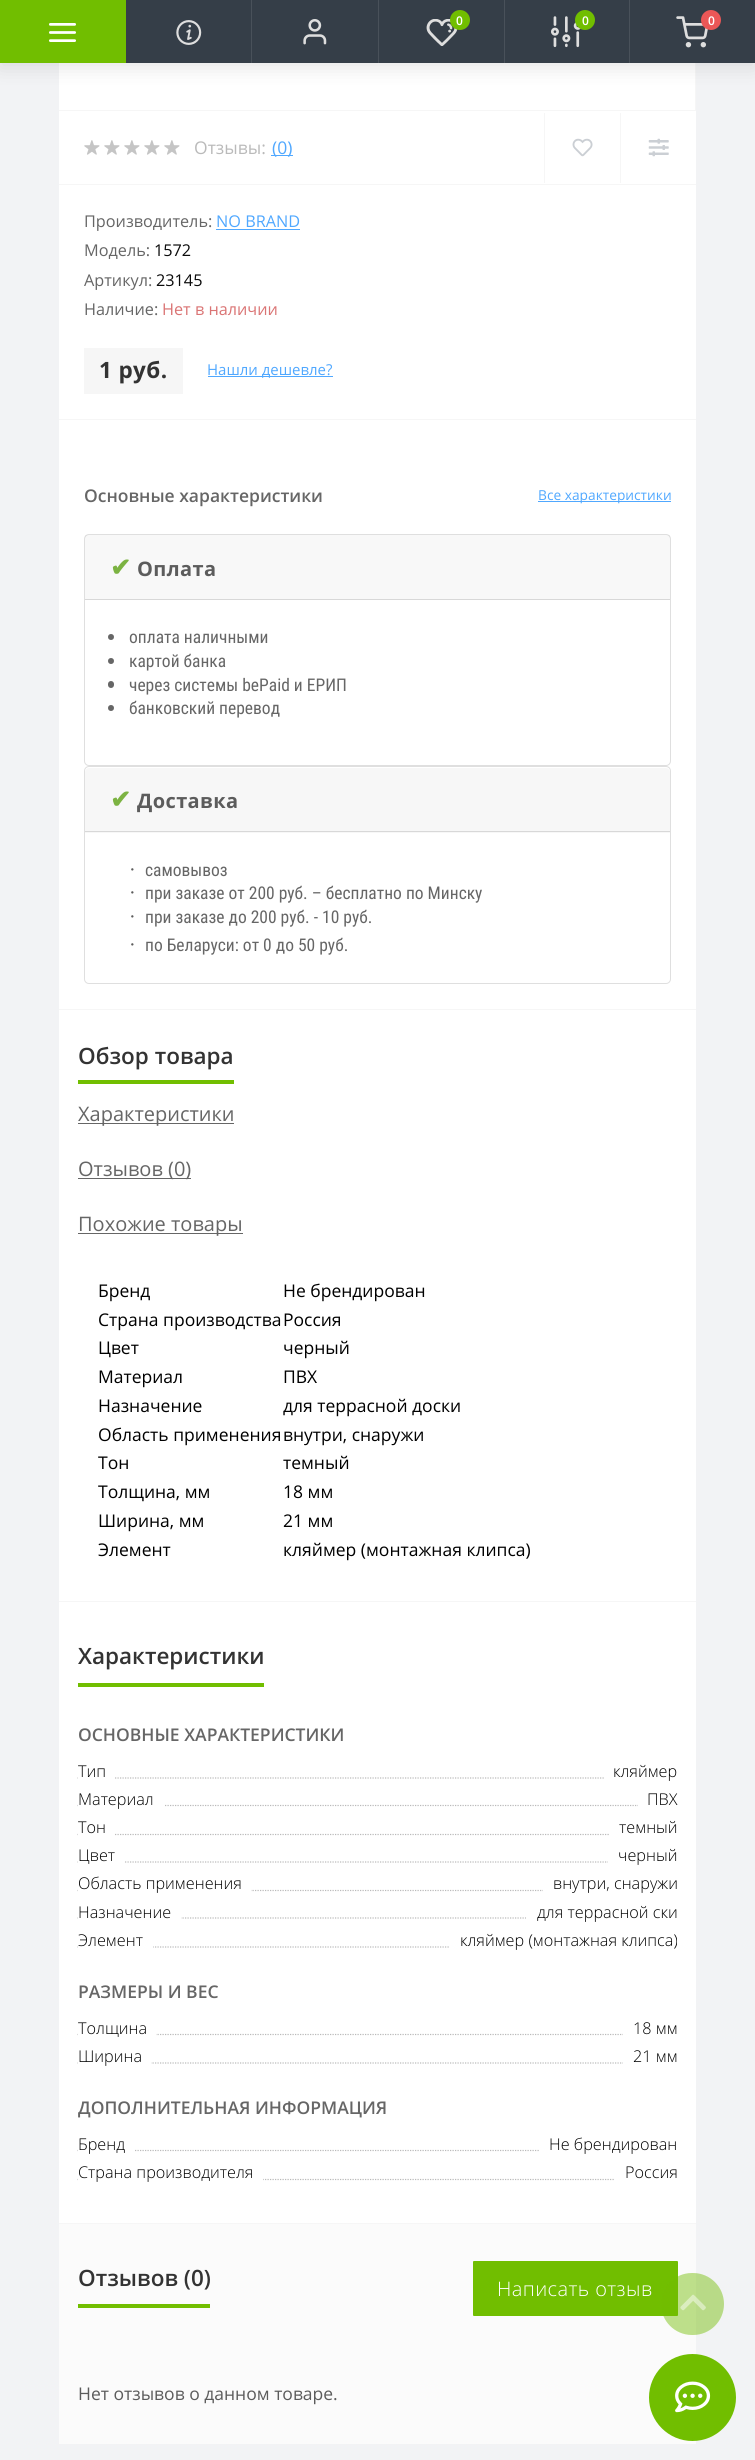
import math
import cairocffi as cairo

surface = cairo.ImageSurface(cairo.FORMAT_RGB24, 755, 2460)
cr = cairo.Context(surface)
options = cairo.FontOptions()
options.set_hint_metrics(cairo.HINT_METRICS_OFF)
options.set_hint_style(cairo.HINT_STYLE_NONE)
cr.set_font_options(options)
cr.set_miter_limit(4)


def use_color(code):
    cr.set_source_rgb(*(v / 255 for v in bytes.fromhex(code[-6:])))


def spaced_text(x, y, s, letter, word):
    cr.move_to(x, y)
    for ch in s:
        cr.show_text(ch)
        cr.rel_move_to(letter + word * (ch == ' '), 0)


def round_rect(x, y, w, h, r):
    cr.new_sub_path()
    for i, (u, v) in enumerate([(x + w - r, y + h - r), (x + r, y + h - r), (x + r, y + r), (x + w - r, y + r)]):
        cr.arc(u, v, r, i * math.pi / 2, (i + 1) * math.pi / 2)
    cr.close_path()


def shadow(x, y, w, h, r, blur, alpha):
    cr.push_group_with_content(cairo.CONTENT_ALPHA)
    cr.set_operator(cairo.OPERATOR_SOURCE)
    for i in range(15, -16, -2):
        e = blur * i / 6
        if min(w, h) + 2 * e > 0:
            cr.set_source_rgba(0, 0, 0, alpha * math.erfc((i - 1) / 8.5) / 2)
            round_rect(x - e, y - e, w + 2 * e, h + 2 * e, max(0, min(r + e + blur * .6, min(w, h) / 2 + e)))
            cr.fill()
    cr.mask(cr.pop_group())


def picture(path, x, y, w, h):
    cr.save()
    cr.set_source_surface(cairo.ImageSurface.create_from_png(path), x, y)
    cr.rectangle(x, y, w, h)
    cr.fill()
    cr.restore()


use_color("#f2f3f5")
cr.paint()
use_color("#ffffff")
cr.rectangle(59, 63, 637, 2160)
cr.fill()
use_color("#f6f6f6")
cr.rectangle(695, 63, 1, 47)
cr.fill()
use_color("#000000")
shadow(0, 5, 755, 63, 0, 9.5, 0.1)
use_color("#353e48")
cr.rectangle(126, 0, 629, 63)
cr.fill()
use_color("#71be00")
cr.rectangle(0, 0, 126, 63)
cr.fill()
picture("img1.png", 49, 23, 27, 19)
picture("img2.png", 176, 20, 26, 25)
use_color("#49515a")
cr.rectangle(251, 0, 1, 63)
cr.fill()
picture("img3.png", 303, 19, 24, 26)
cr.rectangle(378, 0, 1, 63)
cr.fill()
picture("img4.png", 426, 19, 32, 27)
use_color("#71be00")
cr.arc(460, 20, 10, 0, 2 * math.pi)
cr.fill()
cr.select_font_face("Open Sans SemiBold")
cr.set_font_size(12)
use_color("#ffffff")
cr.move_to(456, 25)
cr.show_text("0")
use_color("#49515a")
cr.rectangle(504, 0, 1, 63)
cr.fill()
picture("img5.png", 551, 16, 30, 32)
use_color("#71be00")
cr.arc(585, 20, 10, 0, 2 * math.pi)
cr.fill()
use_color("#ffffff")
cr.move_to(582, 25)
cr.show_text("0")
use_color("#49515a")
cr.rectangle(629, 0, 1, 63)
cr.fill()
picture("img6.png", 676, 16, 32, 32)
use_color("#eb5757")
cr.arc(711, 20, 10, 0, 2 * math.pi)
cr.fill()
use_color("#ffffff")
cr.move_to(708, 25)
cr.show_text("0")
use_color("#f6f6f6")
cr.rectangle(59, 1009, 637, 1)
cr.fill()
cr.rectangle(59, 110, 637, 1)
cr.fill()
cr.rectangle(59, 184, 637, 1)
cr.fill()
picture("img7.png", 84, 140, 16, 15)
picture("img7.png", 104, 140, 16, 15)
picture("img7.png", 124, 140, 16, 15)
picture("img7.png", 144, 140, 16, 15)
picture("img7.png", 164, 140, 16, 15)
cr.select_font_face("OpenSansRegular")
cr.set_font_size(17.5)
use_color("#bababa")
cr.move_to(194, 154)
cr.show_text("Отзывы:")
use_color("#50a8ff")
cr.rectangle(271, 155, 22, 1)
cr.fill()
cr.move_to(272, 154)
cr.show_text("(0)")
use_color("#f6f6f6")
cr.rectangle(544, 113, 1, 70)
cr.fill()
picture("img8.png", 572, 138, 21, 19)
cr.rectangle(620, 113, 1, 70)
cr.fill()
picture("img9.png", 648, 138, 21, 19)
cr.rectangle(59, 419, 637, 1)
cr.fill()
cr.set_font_size(16.25)
use_color("#666666")
cr.move_to(84, 227)
cr.show_text("Производитель:")
use_color("#50a8ff")
cr.move_to(216, 227)
cr.show_text("NO BRAND")
cr.rectangle(216, 229, 84, 1)
cr.fill()
use_color("#666666")
cr.move_to(84, 256)
cr.show_text("Модель:")
use_color("#0b0b0b")
cr.move_to(154, 256)
cr.show_text("1572")
use_color("#666666")
cr.move_to(84, 286)
cr.show_text("Артикул:")
use_color("#0b0b0b")
cr.move_to(156, 286)
cr.show_text("23145")
use_color("#666666")
cr.move_to(84, 315)
cr.show_text("Наличие:")
use_color("#da7474")
cr.move_to(162, 315)
cr.show_text("Нет в наличии")
use_color("#f6f6f6")
cr.rectangle(84, 348, 99, 46)
cr.fill()
cr.select_font_face("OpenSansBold", cairo.FONT_SLANT_NORMAL, cairo.FONT_WEIGHT_BOLD)
cr.set_font_size(22.5)
use_color("#333333")
spaced_text(99, 378, "1 руб.", 0.4, 0)
use_color("#50a8ff")
cr.rectangle(208, 376, 125, 1)
cr.fill()
cr.select_font_face("OpenSansRegular")
cr.set_font_size(15)
cr.move_to(207, 375)
cr.show_text("Нашли дешевле?")
cr.select_font_face("Open Sans SemiBold")
cr.set_font_size(17.5)
use_color("#666666")
cr.move_to(84, 502)
cr.show_text("Основные характеристики")
use_color("#50a8ff")
cr.rectangle(538, 501, 133, 1)
cr.fill()
cr.select_font_face("OpenSansRegular")
cr.set_font_size(13.75)
cr.move_to(538, 500)
cr.show_text("Все характеристики")
round_rect(84.5, 534.5, 586, 231, 4.5)
use_color("#dfdfdf")
cr.set_line_width(1)
cr.stroke()
cr.set_source_rgba(0, 0, 0, 0.03)
cr.rectangle(85, 535, 585, 64)
cr.fill()
use_color("#d8d8d8")
cr.rectangle(85, 599, 585, 1)
cr.fill()
cr.select_font_face("DejaVu Sans", cairo.FONT_SLANT_NORMAL, cairo.FONT_WEIGHT_BOLD)
cr.set_font_size(25)
use_color("#7cb342")
spaced_text(110, 576, "✔", 0.4, 0)
cr.select_font_face("OpenSansBold", cairo.FONT_SLANT_NORMAL, cairo.FONT_WEIGHT_BOLD)
cr.set_font_size(20)
use_color("#5c5c5c")
spaced_text(137, 576, "Оплата", 0.4, 0)
use_color("#666666")
cr.new_path()
cr.arc(111, 637, 3, 0, 2 * math.pi)
cr.fill()
cr.select_font_face("Roboto Condensed")
cr.set_font_size(17.5)
cr.move_to(129, 643)
cr.show_text("оплата наличными")
cr.new_path()
cr.arc(111, 661, 3, 0, 2 * math.pi)
cr.fill()
cr.move_to(129, 667)
cr.show_text("картой банка")
round_rect(108, 681, 6, 7, 3)
cr.fill()
cr.move_to(129, 691)
cr.show_text("через системы bePaid и ЕРИП")
cr.new_path()
cr.arc(111, 708, 3, 0, 2 * math.pi)
cr.fill()
cr.move_to(129, 714)
cr.show_text("банковский перевод")
round_rect(84.5, 766.5, 586, 217, 4.5)
use_color("#dfdfdf")
cr.stroke()
use_color("#f7f7f7")
cr.new_path()
cr.move_to(89, 768)
cr.line_to(666, 768)
cr.curve_to(668, 768, 670, 770, 670, 772)
cr.line_to(670, 833)
cr.line_to(85, 833)
cr.line_to(85, 772)
cr.curve_to(85, 770, 87, 768, 89, 768)
cr.close_path()
cr.fill()
use_color("#d8d8d8")
cr.rectangle(85, 831, 585, 1)
cr.fill()
cr.select_font_face("DejaVu Sans", cairo.FONT_SLANT_NORMAL, cairo.FONT_WEIGHT_BOLD)
cr.set_font_size(25)
use_color("#7cb342")
spaced_text(110, 808, "✔", 0.4, 0)
cr.select_font_face("OpenSansBold", cairo.FONT_SLANT_NORMAL, cairo.FONT_WEIGHT_BOLD)
cr.set_font_size(20)
use_color("#5c5c5c")
spaced_text(137, 808, "Доставка", 0.4, 0)
cr.select_font_face("Liberation Serif")
cr.move_to(129, 876)
cr.show_text("·")
cr.select_font_face("Roboto Condensed")
cr.set_font_size(17.5)
use_color("#666666")
cr.move_to(145, 876)
cr.show_text("самовывоз")
cr.select_font_face("Liberation Serif")
cr.set_font_size(20)
use_color("#5c5c5c")
cr.move_to(129, 899)
cr.show_text("·")
cr.select_font_face("Roboto Condensed")
cr.set_font_size(17.5)
use_color("#666666")
cr.move_to(145, 899)
cr.show_text("при заказе от 200 руб. – бесплатно по Минску")
cr.select_font_face("Liberation Serif")
cr.set_font_size(20)
use_color("#5c5c5c")
cr.move_to(129, 923)
cr.show_text("·")
cr.select_font_face("Roboto Condensed")
cr.set_font_size(17.5)
use_color("#666666")
cr.move_to(145, 923)
cr.show_text("при заказе до 200 руб. - 10 руб.")
cr.select_font_face("Liberation Serif")
cr.set_font_size(20)
use_color("#5c5c5c")
cr.move_to(129, 951)
cr.show_text("·")
cr.select_font_face("Roboto Condensed")
cr.set_font_size(17.5)
use_color("#666666")
cr.move_to(145, 951)
cr.show_text("по Беларуси: от 0 до 50 руб.")
cr.select_font_face("Open Sans SemiBold")
cr.set_font_size(22.5)
use_color("#333333")
cr.move_to(78, 1064)
cr.show_text("Обзор товара")
use_color("#71be00")
cr.rectangle(78, 1080, 156, 4)
cr.fill()
use_color("#666666")
cr.rectangle(78, 1123, 156, 1)
cr.fill()
cr.select_font_face("OpenSansRegular")
cr.set_font_size(20)
cr.move_to(78, 1121)
cr.show_text("Характеристики")
cr.rectangle(78, 1178, 113, 1)
cr.fill()
cr.move_to(78, 1176)
cr.show_text("Отзывов (0)")
cr.rectangle(78, 1233, 165, 1)
cr.fill()
cr.move_to(78, 1231)
cr.show_text("Похожие товары")
cr.set_font_size(17.5)
use_color("#000000")
cr.move_to(98, 1297)
cr.show_text("Бренд")
cr.move_to(283, 1297)
cr.show_text("Не брендирован")
cr.move_to(98, 1326)
cr.show_text("Страна производства")
cr.move_to(283, 1326)
cr.show_text("Россия")
cr.move_to(98, 1354)
cr.show_text("Цвет")
cr.move_to(283, 1354)
cr.show_text("черный")
cr.move_to(98, 1383)
cr.show_text("Материал")
cr.move_to(283, 1383)
cr.show_text("ПВХ")
cr.move_to(98, 1412)
cr.show_text("Назначение")
cr.move_to(283, 1412)
cr.show_text("для террасной доски")
cr.move_to(98, 1441)
cr.show_text("Область применения")
cr.move_to(283, 1441)
cr.show_text("внутри, снаружи")
cr.move_to(98, 1469)
cr.show_text("Тон")
cr.move_to(283, 1469)
cr.show_text("темный")
cr.move_to(98, 1498)
cr.show_text("Толщина, мм")
cr.move_to(283, 1498)
cr.show_text("18 мм")
cr.move_to(98, 1527)
cr.show_text("Ширина, мм")
cr.move_to(283, 1527)
cr.show_text("21 мм")
cr.move_to(98, 1556)
cr.show_text("Элемент")
cr.move_to(283, 1556)
cr.show_text("кляймер (монтажная клипса)")
use_color("#f6f6f6")
cr.rectangle(59, 1601, 637, 1)
cr.fill()
cr.rectangle(59, 2223, 637, 1)
cr.fill()
cr.select_font_face("Open Sans SemiBold")
cr.set_font_size(22.5)
use_color("#333333")
cr.move_to(78, 1664)
cr.show_text("Характеристики")
use_color("#71be00")
cr.rectangle(78, 1683, 186, 4)
cr.fill()
cr.set_font_size(17.5)
use_color("#666666")
cr.move_to(78, 1741)
cr.show_text("ОСНОВНЫЕ ХАРАКТЕРИСТИКИ")
cr.new_path()
cr.move_to(77.5, 1778)
cr.line_to(677.5, 1778)
use_color("#bababa")
cr.set_line_width(1.2)
cr.set_dash([1.25, 1.25])
cr.stroke()
use_color("#ffffff")
cr.rectangle(78, 1777, 36, 2)
cr.fill()
cr.select_font_face("Open Sans Light")
cr.set_font_size(16.25)
use_color("#000000")
cr.move_to(78, 1777)
cr.show_text("Тип")
use_color("#ffffff")
cr.rectangle(605, 1777, 72, 2)
cr.fill()
use_color("#000000")
cr.move_to(613, 1777)
cr.show_text("кляймер")
cr.new_path()
cr.move_to(77.5, 1805.5)
cr.line_to(677.5, 1805.5)
use_color("#bababa")
cr.stroke()
use_color("#ffffff")
cr.rectangle(78, 1804, 86, 3)
cr.fill()
use_color("#000000")
cr.move_to(78, 1805)
cr.show_text("Материал")
use_color("#ffffff")
cr.rectangle(638, 1804, 39, 3)
cr.fill()
use_color("#000000")
cr.move_to(647, 1805)
cr.show_text("ПВХ")
cr.new_path()
cr.move_to(77.5, 1834.5)
cr.line_to(677.5, 1834.5)
use_color("#bababa")
cr.stroke()
use_color("#ffffff")
cr.rectangle(78, 1833, 36, 3)
cr.fill()
use_color("#000000")
cr.move_to(78, 1833)
cr.show_text("Тон")
use_color("#ffffff")
cr.rectangle(610, 1833, 67, 3)
cr.fill()
use_color("#000000")
cr.move_to(619, 1833)
cr.show_text("темный")
cr.new_path()
cr.move_to(77.5, 1862)
cr.line_to(677.5, 1862)
use_color("#bababa")
cr.stroke()
use_color("#ffffff")
cr.rectangle(78, 1861, 46, 2)
cr.fill()
use_color("#000000")
cr.move_to(78, 1861)
cr.show_text("Цвет")
use_color("#ffffff")
cr.rectangle(608, 1861, 69, 2)
cr.fill()
use_color("#000000")
cr.move_to(618, 1861)
cr.show_text("черный")
cr.new_path()
cr.move_to(77.5, 1890.5)
cr.line_to(677.5, 1890.5)
use_color("#bababa")
cr.stroke()
use_color("#ffffff")
cr.rectangle(78, 1889, 173, 3)
cr.fill()
use_color("#000000")
cr.move_to(78, 1889)
cr.show_text("Область применения")
use_color("#ffffff")
cr.rectangle(543, 1889, 134, 3)
cr.fill()
use_color("#000000")
cr.move_to(553, 1889)
cr.show_text("внутри, снаружи")
cr.new_path()
cr.move_to(77.5, 1918)
cr.line_to(677.5, 1918)
use_color("#bababa")
cr.stroke()
use_color("#ffffff")
cr.rectangle(78, 1917, 103, 2)
cr.fill()
use_color("#000000")
cr.move_to(78, 1918)
cr.show_text("Назначение")
use_color("#ffffff")
cr.rectangle(526, 1917, 151, 2)
cr.fill()
use_color("#000000")
cr.move_to(537, 1918)
cr.show_text("для террасной ски")
cr.new_path()
cr.move_to(77.5, 1947)
cr.line_to(677.5, 1947)
use_color("#bababa")
cr.stroke()
use_color("#ffffff")
cr.rectangle(78, 1946, 75, 2)
cr.fill()
use_color("#000000")
cr.move_to(78, 1946)
cr.show_text("Элемент")
use_color("#ffffff")
cr.rectangle(450, 1946, 227, 2)
cr.fill()
use_color("#000000")
cr.move_to(460, 1946)
cr.show_text("кляймер (монтажная клипса)")
cr.select_font_face("Open Sans SemiBold")
cr.set_font_size(17.5)
use_color("#666666")
cr.move_to(78, 1998)
cr.show_text("РАЗМЕРЫ И ВЕС")
cr.new_path()
cr.move_to(77.5, 2034.5)
cr.line_to(677.5, 2034.5)
use_color("#bababa")
cr.stroke()
use_color("#ffffff")
cr.rectangle(78, 2033, 78, 3)
cr.fill()
cr.select_font_face("Open Sans Light")
cr.set_font_size(16.25)
use_color("#000000")
cr.move_to(78, 2034)
cr.show_text("Толщина")
use_color("#ffffff")
cr.rectangle(623, 2033, 54, 3)
cr.fill()
use_color("#000000")
cr.move_to(633, 2034)
cr.show_text("18 мм")
cr.new_path()
cr.move_to(77.5, 2063)
cr.line_to(677.5, 2063)
use_color("#bababa")
cr.stroke()
use_color("#ffffff")
cr.rectangle(78, 2062, 73, 2)
cr.fill()
use_color("#000000")
cr.move_to(78, 2062)
cr.show_text("Ширина")
use_color("#ffffff")
cr.rectangle(623, 2062, 54, 2)
cr.fill()
use_color("#000000")
cr.move_to(633, 2062)
cr.show_text("21 мм")
cr.select_font_face("Open Sans SemiBold")
cr.set_font_size(17.5)
use_color("#666666")
cr.move_to(78, 2114)
cr.show_text("ДОПОЛНИТЕЛЬНАЯ ИНФОРМАЦИЯ")
cr.new_path()
cr.move_to(77.5, 2150.5)
cr.line_to(677.5, 2150.5)
use_color("#bababa")
cr.stroke()
use_color("#ffffff")
cr.rectangle(78, 2149, 56, 3)
cr.fill()
cr.select_font_face("Open Sans Light")
cr.set_font_size(16.25)
use_color("#000000")
cr.move_to(78, 2150)
cr.show_text("Бренд")
use_color("#ffffff")
cr.rectangle(540, 2149, 137, 3)
cr.fill()
use_color("#000000")
cr.move_to(549, 2150)
cr.show_text("Не брендирован")
cr.new_path()
cr.move_to(77.5, 2179.5)
cr.line_to(677.5, 2179.5)
use_color("#bababa")
cr.stroke()
use_color("#ffffff")
cr.rectangle(78, 2178, 185, 3)
cr.fill()
use_color("#000000")
cr.move_to(78, 2178)
cr.show_text("Страна производителя")
use_color("#ffffff")
cr.rectangle(615, 2178, 62, 3)
cr.fill()
use_color("#000000")
cr.move_to(625, 2178)
cr.show_text("Россия")
use_color("#fbfbfb")
cr.rectangle(59, 2224, 637, 220)
cr.fill()
cr.select_font_face("Open Sans SemiBold")
cr.set_font_size(22.5)
use_color("#333333")
cr.move_to(78, 2286)
cr.show_text("Отзывов (0)")
use_color("#71be00")
cr.rectangle(78, 2304, 132, 4)
cr.fill()
round_rect(473, 2261, 205, 55, 1)
cr.fill()
cr.select_font_face("Open Sans Light")
cr.set_font_size(20)
use_color("#ffffff")
spaced_text(497, 2296, "Написать отзыв", 0.4, 0)
cr.select_font_face("OpenSansRegular")
cr.set_font_size(17.5)
use_color("#5c5c5c")
cr.move_to(78, 2400)
cr.show_text("Нет отзывов о данном товаре.")
cr.set_source_rgba(0.443, 0.745, 0, 0.45)
round_rect(661, 2273, 63, 62, 31)
cr.fill()
picture("img10.png", 680, 2294, 26, 17)
use_color("#71be00")
cr.arc(692.5, 2397.5, 43.5, 0, 2 * math.pi)
cr.fill()
picture("img11.png", 675, 2381, 36, 32)
surface.write_to_png("result.png")
